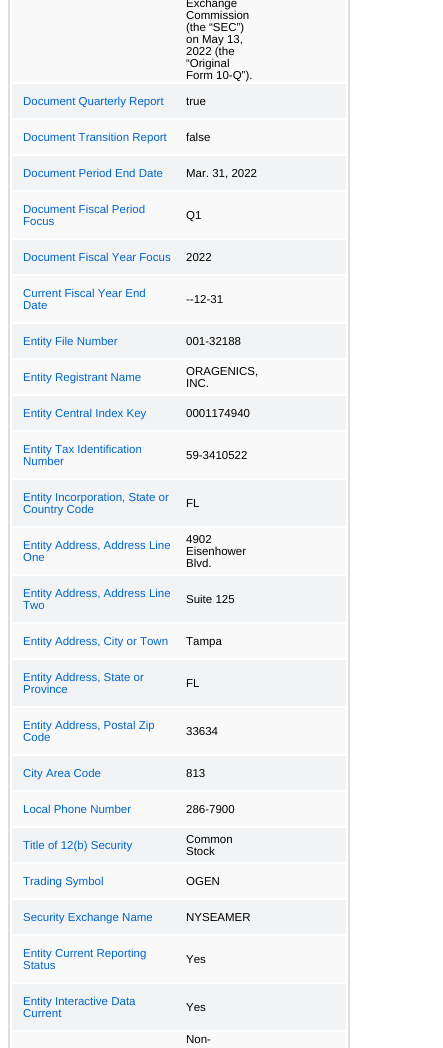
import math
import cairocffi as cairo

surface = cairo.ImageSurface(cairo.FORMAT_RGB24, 443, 1048)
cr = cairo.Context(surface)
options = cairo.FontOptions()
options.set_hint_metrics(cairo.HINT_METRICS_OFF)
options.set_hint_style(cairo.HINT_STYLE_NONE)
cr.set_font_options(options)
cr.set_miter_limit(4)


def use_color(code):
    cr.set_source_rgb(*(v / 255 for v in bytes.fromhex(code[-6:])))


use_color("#ffffff")
cr.paint()
cr.rectangle(9, -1, 340, 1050)
use_color("#dedede")
cr.stroke()
use_color("#f9f9f9")
cr.rectangle(12, 0, 334, 82)
cr.fill()
cr.select_font_face("Liberation Sans")
cr.set_font_size(11.5)
use_color("#000000")
cr.move_to(186, 7)
cr.show_text("Exchange")
cr.move_to(186, 19)
cr.show_text("Commission")
cr.move_to(186, 31)
cr.show_text("(the “SEC”)")
cr.move_to(186, 43)
cr.show_text("on May 13,")
cr.move_to(186, 55)
cr.show_text("2022 (the")
cr.move_to(186, 67)
cr.show_text("“Original")
cr.move_to(186, 79)
cr.show_text("Form 10-Q”).")
use_color("#f2f3f4")
cr.rectangle(12, 84, 334, 34)
cr.fill()
use_color("#0066cc")
cr.move_to(23, 105)
cr.show_text("Document Quarterly Report")
use_color("#000000")
cr.move_to(186, 105)
cr.show_text("true")
use_color("#f9f9f9")
cr.rectangle(12, 120, 334, 34)
cr.fill()
use_color("#0066cc")
cr.move_to(23, 141)
cr.show_text("Document Transition Report")
use_color("#000000")
cr.move_to(186, 141)
cr.show_text("false")
use_color("#f2f3f4")
cr.rectangle(12, 156, 334, 34)
cr.fill()
use_color("#0066cc")
cr.move_to(23, 177)
cr.show_text("Document Period End Date")
use_color("#000000")
cr.move_to(186, 177)
cr.show_text("Mar. 31, 2022")
use_color("#f9f9f9")
cr.rectangle(12, 192, 334, 46)
cr.fill()
use_color("#0066cc")
cr.move_to(23, 213)
cr.show_text("Document Fiscal Period")
cr.move_to(23, 225)
cr.show_text("Focus")
use_color("#000000")
cr.move_to(186, 219)
cr.show_text("Q1")
use_color("#f2f3f4")
cr.rectangle(12, 240, 334, 34)
cr.fill()
use_color("#0066cc")
cr.move_to(23, 261)
cr.show_text("Document Fiscal Year Focus")
use_color("#000000")
cr.move_to(186, 261)
cr.show_text("2022")
use_color("#f9f9f9")
cr.rectangle(12, 276, 334, 46)
cr.fill()
use_color("#0066cc")
cr.move_to(23, 297)
cr.show_text("Current Fiscal Year End")
cr.move_to(23, 309)
cr.show_text("Date")
use_color("#000000")
cr.move_to(186, 303)
cr.show_text("--12-31")
use_color("#f2f3f4")
cr.rectangle(12, 324, 334, 34)
cr.fill()
use_color("#0066cc")
cr.move_to(23, 345)
cr.show_text("Entity File Number")
use_color("#000000")
cr.move_to(186, 345)
cr.show_text("001-32188")
use_color("#f9f9f9")
cr.rectangle(12, 360, 334, 34)
cr.fill()
use_color("#0066cc")
cr.move_to(23, 381)
cr.show_text("Entity Registrant Name")
use_color("#000000")
cr.move_to(186, 375)
cr.show_text("ORAGENICS,")
cr.move_to(186, 387)
cr.show_text("INC.")
use_color("#f2f3f4")
cr.rectangle(12, 396, 334, 34)
cr.fill()
use_color("#0066cc")
cr.move_to(23, 417)
cr.show_text("Entity Central Index Key")
use_color("#000000")
cr.move_to(186, 417)
cr.show_text("0001174940")
use_color("#f9f9f9")
cr.rectangle(12, 432, 334, 46)
cr.fill()
use_color("#0066cc")
cr.move_to(23, 453)
cr.show_text("Entity Tax Identification")
cr.move_to(23, 465)
cr.show_text("Number")
use_color("#000000")
cr.move_to(186, 459)
cr.show_text("59-3410522")
use_color("#f2f3f4")
cr.rectangle(12, 480, 334, 46)
cr.fill()
use_color("#0066cc")
cr.move_to(23, 501)
cr.show_text("Entity Incorporation, State or")
cr.move_to(23, 513)
cr.show_text("Country Code")
use_color("#000000")
cr.move_to(186, 507)
cr.show_text("FL")
use_color("#f9f9f9")
cr.rectangle(12, 528, 334, 46)
cr.fill()
use_color("#0066cc")
cr.move_to(23, 549)
cr.show_text("Entity Address, Address Line")
cr.move_to(23, 561)
cr.show_text("One")
use_color("#000000")
cr.move_to(186, 543)
cr.show_text("4902")
cr.move_to(186, 555)
cr.show_text("Eisenhower")
cr.move_to(186, 567)
cr.show_text("Blvd.")
use_color("#f2f3f4")
cr.rectangle(12, 576, 334, 46)
cr.fill()
use_color("#0066cc")
cr.move_to(23, 597)
cr.show_text("Entity Address, Address Line")
cr.move_to(23, 609)
cr.show_text("Two")
use_color("#000000")
cr.move_to(186, 603)
cr.show_text("Suite 125")
use_color("#f9f9f9")
cr.rectangle(12, 624, 334, 34)
cr.fill()
use_color("#0066cc")
cr.move_to(23, 645)
cr.show_text("Entity Address, City or Town")
use_color("#000000")
cr.move_to(186, 645)
cr.show_text("Tampa")
use_color("#f2f3f4")
cr.rectangle(12, 660, 334, 46)
cr.fill()
use_color("#0066cc")
cr.move_to(23, 681)
cr.show_text("Entity Address, State or")
cr.move_to(23, 693)
cr.show_text("Province")
use_color("#000000")
cr.move_to(186, 687)
cr.show_text("FL")
use_color("#f9f9f9")
cr.rectangle(12, 708, 334, 46)
cr.fill()
use_color("#0066cc")
cr.move_to(23, 729)
cr.show_text("Entity Address, Postal Zip")
cr.move_to(23, 741)
cr.show_text("Code")
use_color("#000000")
cr.move_to(186, 735)
cr.show_text("33634")
use_color("#f2f3f4")
cr.rectangle(12, 756, 334, 34)
cr.fill()
use_color("#0066cc")
cr.move_to(23, 777)
cr.show_text("City Area Code")
use_color("#000000")
cr.move_to(186, 777)
cr.show_text("813")
use_color("#f9f9f9")
cr.rectangle(12, 792, 334, 34)
cr.fill()
use_color("#0066cc")
cr.move_to(23, 813)
cr.show_text("Local Phone Number")
use_color("#000000")
cr.move_to(186, 813)
cr.show_text("286-7900")
use_color("#f2f3f4")
cr.rectangle(12, 828, 334, 34)
cr.fill()
use_color("#0066cc")
cr.move_to(23, 849)
cr.show_text("Title of 12(b) Security")
use_color("#000000")
cr.move_to(186, 843)
cr.show_text("Common")
cr.move_to(186, 855)
cr.show_text("Stock")
use_color("#f9f9f9")
cr.rectangle(12, 864, 334, 34)
cr.fill()
use_color("#0066cc")
cr.move_to(23, 885)
cr.show_text("Trading Symbol")
use_color("#000000")
cr.move_to(186, 885)
cr.show_text("OGEN")
use_color("#f2f3f4")
cr.rectangle(12, 900, 334, 34)
cr.fill()
use_color("#0066cc")
cr.move_to(23, 921)
cr.show_text("Security Exchange Name")
use_color("#000000")
cr.move_to(186, 921)
cr.show_text("NYSEAMER")
use_color("#f9f9f9")
cr.rectangle(12, 936, 334, 46)
cr.fill()
use_color("#0066cc")
cr.move_to(23, 957)
cr.show_text("Entity Current Reporting")
cr.move_to(23, 969)
cr.show_text("Status")
use_color("#000000")
cr.move_to(186, 963)
cr.show_text("Yes")
use_color("#f2f3f4")
cr.rectangle(12, 984, 334, 46)
cr.fill()
use_color("#0066cc")
cr.move_to(23, 1005)
cr.show_text("Entity Interactive Data")
cr.move_to(23, 1017)
cr.show_text("Current")
use_color("#000000")
cr.move_to(186, 1011)
cr.show_text("Yes")
use_color("#f9f9f9")
cr.rectangle(12, 1032, 334, 16)
cr.fill()
use_color("#000000")
cr.move_to(186, 1043)
cr.show_text("Non-")
surface.write_to_png("result.png")
